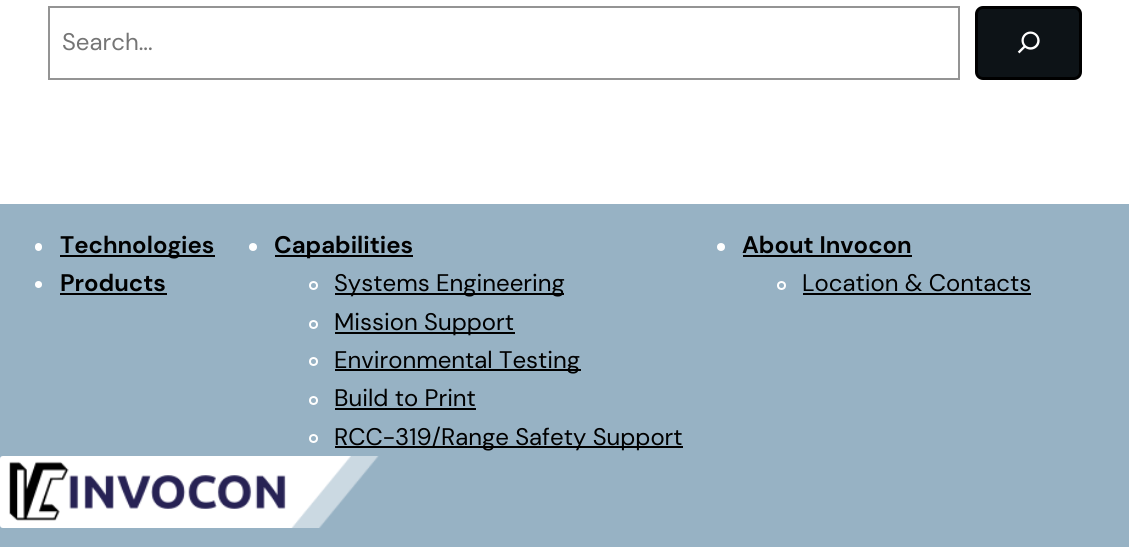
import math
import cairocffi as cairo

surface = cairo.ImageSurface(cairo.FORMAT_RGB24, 1129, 547)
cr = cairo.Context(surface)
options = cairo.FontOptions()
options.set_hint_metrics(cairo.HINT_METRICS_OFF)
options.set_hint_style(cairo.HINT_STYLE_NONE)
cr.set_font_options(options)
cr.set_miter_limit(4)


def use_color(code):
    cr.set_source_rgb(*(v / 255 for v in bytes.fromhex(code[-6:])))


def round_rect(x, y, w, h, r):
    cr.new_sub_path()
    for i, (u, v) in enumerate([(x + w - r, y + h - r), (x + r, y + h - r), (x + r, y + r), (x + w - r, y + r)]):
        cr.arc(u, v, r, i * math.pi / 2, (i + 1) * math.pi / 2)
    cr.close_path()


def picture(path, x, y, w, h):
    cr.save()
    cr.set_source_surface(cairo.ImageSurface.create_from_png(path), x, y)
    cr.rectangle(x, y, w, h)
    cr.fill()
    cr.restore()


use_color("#ffffff")
cr.paint()
cr.rectangle(49, 7, 910, 72)
use_color("#949494")
cr.stroke()
cr.select_font_face("DM Sans")
cr.set_font_size(24)
use_color("#757575")
cr.move_to(62, 50)
cr.show_text("Search...")
use_color("#0d1317")
round_rect(976.5, 7.5, 104, 71, 6.5)
cr.fill_preserve()
use_color("#000000")
cr.set_line_width(3)
cr.stroke()
picture("img1.png", 1017, 31, 23, 23)
use_color("#97b2c4")
cr.rectangle(0, 204, 1129, 343)
cr.fill()
picture("img2.png", 0, 456, 379, 72)
use_color("#ffffff")
round_rect(35, 243, 7, 8, 3.5)
cr.fill()
use_color("#000000")
cr.rectangle(60, 255, 155, 2)
cr.fill()
cr.select_font_face("DM Sans", cairo.FONT_SLANT_NORMAL, cairo.FONT_WEIGHT_BOLD)
cr.move_to(60, 253)
cr.show_text("Technologies")
use_color("#ffffff")
cr.new_path()
cr.arc(38.5, 284.5, 3.5, 0, 2 * math.pi)
cr.fill()
use_color("#000000")
cr.move_to(60, 291)
cr.show_text("Products")
cr.rectangle(60, 293, 107, 2)
cr.fill()
use_color("#ffffff")
cr.arc(253, 247, 4, 0, 2 * math.pi)
cr.fill()
use_color("#000000")
cr.rectangle(275, 255, 138, 2)
cr.fill()
cr.move_to(274, 253)
cr.show_text("Capabilities")
cr.new_path()
cr.arc(313.5, 285.5, 3.5, 0, 2 * math.pi)
use_color("#ffffff")
cr.set_line_width(2)
cr.stroke()
use_color("#000000")
cr.rectangle(335, 293, 229, 2)
cr.fill()
cr.select_font_face("DM Sans")
cr.move_to(334, 291)
cr.show_text("Systems Engineering")
cr.new_path()
cr.arc(313.5, 324.5, 3.5, 0, 2 * math.pi)
use_color("#ffffff")
cr.stroke()
use_color("#000000")
cr.rectangle(335, 332, 180, 2)
cr.fill()
cr.move_to(334, 330)
cr.show_text("Mission Support")
cr.new_path()
cr.arc(313.5, 361.5, 3.5, 0, 2 * math.pi)
use_color("#ffffff")
cr.stroke()
use_color("#000000")
cr.rectangle(335, 369, 246, 2)
cr.fill()
cr.move_to(334, 368)
cr.show_text("Environmental Testing")
cr.new_path()
cr.arc(313.5, 400.5, 3.5, 0, 2 * math.pi)
use_color("#ffffff")
cr.stroke()
use_color("#000000")
cr.move_to(334, 406)
cr.show_text("Build to Print")
cr.rectangle(335, 408, 141, 2)
cr.fill()
cr.arc(313.5, 438.5, 3.5, 0, 2 * math.pi)
use_color("#ffffff")
cr.stroke()
use_color("#000000")
cr.rectangle(335, 446, 348, 2)
cr.fill()
cr.move_to(334, 445)
cr.show_text("RCC-319/Range Safety Support")
use_color("#ffffff")
cr.new_path()
cr.arc(721, 247, 4, 0, 2 * math.pi)
cr.fill()
cr.select_font_face("DM Sans", cairo.FONT_SLANT_NORMAL, cairo.FONT_WEIGHT_BOLD)
use_color("#000000")
cr.move_to(742, 253)
cr.show_text("About Invocon")
cr.rectangle(743, 255, 169, 2)
cr.fill()
cr.arc(781.5, 285.5, 3.5, 0, 2 * math.pi)
use_color("#ffffff")
cr.stroke()
cr.select_font_face("DM Sans")
use_color("#000000")
cr.move_to(802, 291)
cr.show_text("Location & Contacts")
cr.rectangle(803, 293, 228, 2)
cr.fill()
surface.write_to_png("result.png")
